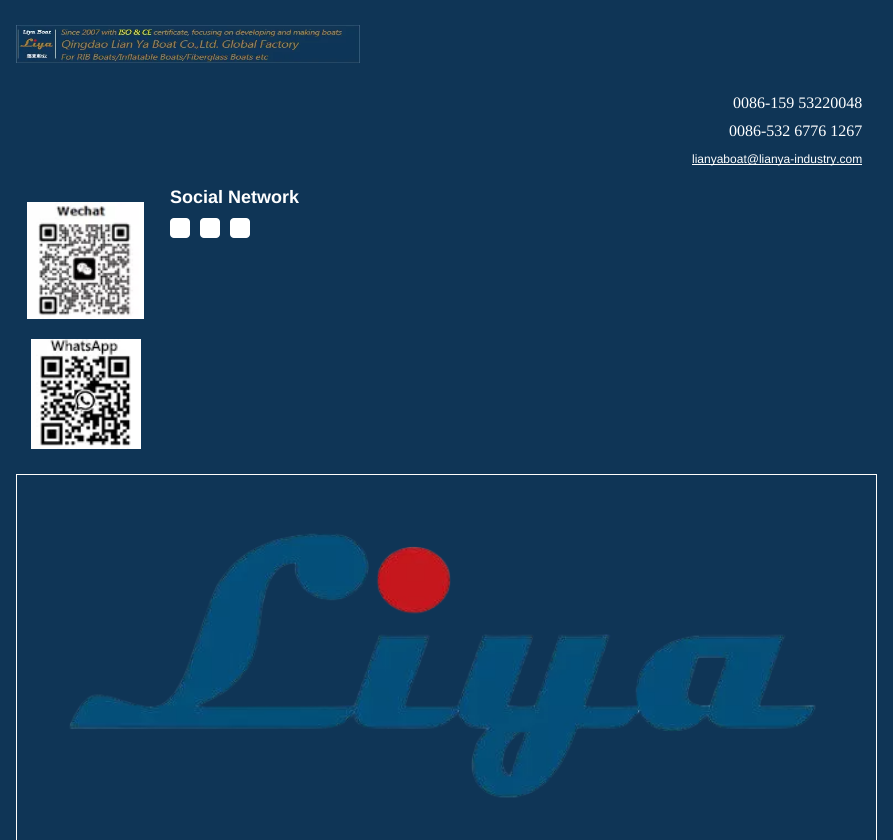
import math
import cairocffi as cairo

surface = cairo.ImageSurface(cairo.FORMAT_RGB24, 893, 840)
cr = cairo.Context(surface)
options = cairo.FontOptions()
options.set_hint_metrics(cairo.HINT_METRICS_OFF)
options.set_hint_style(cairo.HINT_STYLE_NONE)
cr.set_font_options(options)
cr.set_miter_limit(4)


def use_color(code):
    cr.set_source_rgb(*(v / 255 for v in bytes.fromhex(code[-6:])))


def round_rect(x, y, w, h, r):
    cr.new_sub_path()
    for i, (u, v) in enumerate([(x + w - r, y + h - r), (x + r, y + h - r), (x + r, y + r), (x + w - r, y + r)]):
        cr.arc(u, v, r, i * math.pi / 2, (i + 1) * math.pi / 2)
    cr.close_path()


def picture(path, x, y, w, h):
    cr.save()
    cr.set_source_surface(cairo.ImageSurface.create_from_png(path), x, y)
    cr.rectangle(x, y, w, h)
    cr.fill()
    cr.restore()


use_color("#0f3556")
cr.paint()
picture("img1.png", 16, 25, 344, 38)
cr.select_font_face("Liberation Serif")
cr.set_font_size(16)
use_color("#ffffff")
cr.move_to(733, 108)
cr.show_text("0086-159 53220048")
cr.move_to(729, 136)
cr.show_text("0086-532 6776 1267")
cr.rectangle(692, 164, 170, 1)
cr.fill()
cr.select_font_face("Liberation Sans")
cr.set_font_size(12)
cr.move_to(692, 163)
cr.show_text("lianyaboat@lianya-industry.com")
cr.select_font_face("Liberation Sans", cairo.FONT_SLANT_NORMAL, cairo.FONT_WEIGHT_BOLD)
cr.set_font_size(18)
cr.move_to(170, 203)
cr.show_text("Social Network")
round_rect(170, 218, 20, 20, 4)
cr.fill()
round_rect(200, 218, 20, 20, 4)
cr.fill()
round_rect(230, 218, 20, 20, 4)
cr.fill()
picture("img2.png", 27, 202, 117, 117)
picture("img3.png", 31, 339, 110, 110)
cr.rectangle(16.5, 474.5, 860, 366)
use_color("#fefdfb")
cr.set_line_width(1)
cr.stroke()
picture("img4.png", 69, 533, 747, 265)
surface.write_to_png("result.png")
